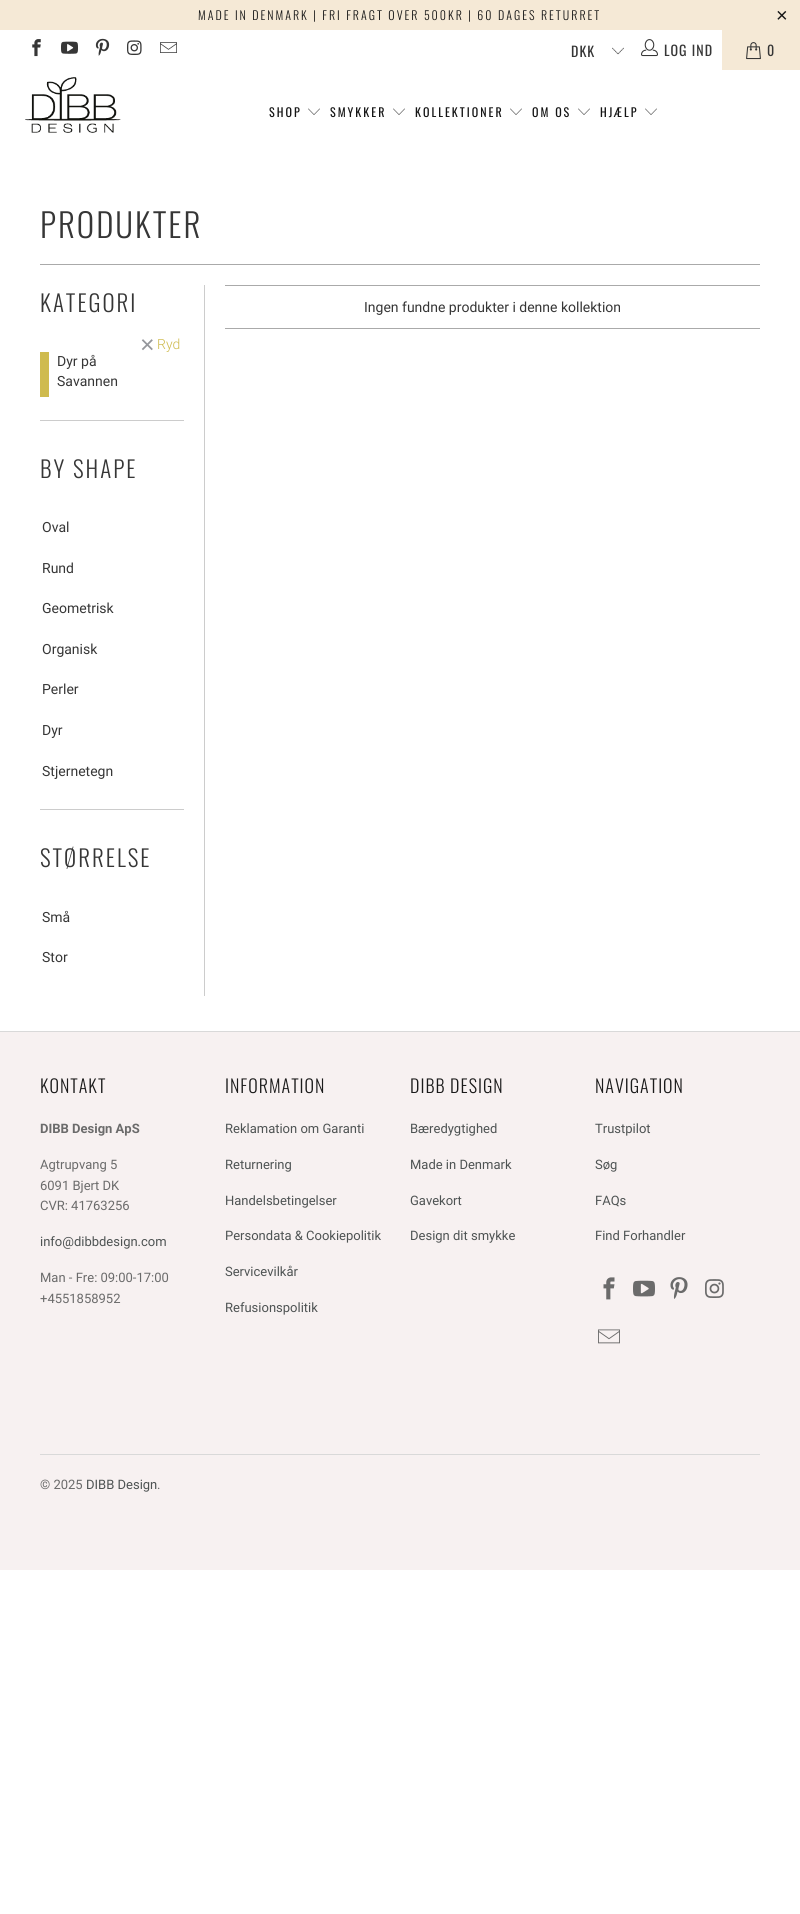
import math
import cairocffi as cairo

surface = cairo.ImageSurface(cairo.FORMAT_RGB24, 800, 1914)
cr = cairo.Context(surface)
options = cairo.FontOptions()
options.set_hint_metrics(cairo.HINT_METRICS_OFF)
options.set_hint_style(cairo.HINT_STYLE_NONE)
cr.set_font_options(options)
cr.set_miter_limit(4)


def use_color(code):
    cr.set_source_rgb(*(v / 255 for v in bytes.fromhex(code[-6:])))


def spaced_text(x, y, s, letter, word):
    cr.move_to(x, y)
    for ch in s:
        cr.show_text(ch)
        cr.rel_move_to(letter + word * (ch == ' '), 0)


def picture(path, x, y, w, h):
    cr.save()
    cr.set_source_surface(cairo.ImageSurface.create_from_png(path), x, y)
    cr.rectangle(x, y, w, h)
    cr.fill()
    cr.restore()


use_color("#ffffff")
cr.paint()
use_color("#f5e9d6")
cr.rectangle(0, 0, 800, 30)
cr.fill()
cr.select_font_face("Oswald Light")
cr.set_font_size(12)
use_color("#151515")
spaced_text(198, 20, "MADE IN DENMARK | FRI FRAGT OVER 500KR | 60 DAGES RETURRET", 2, 0)
cr.select_font_face("Liberation Sans")
cr.set_font_size(20)
spaced_text(776, 22, "×", 2, 0)
picture("img1.png", 32, 39, 9, 18)
picture("img2.png", 61, 41, 17, 13)
picture("img3.png", 95, 38, 15, 18)
picture("img4.png", 127, 40, 15, 15)
picture("img5.png", 160, 42, 17, 11)
picture("img6.png", 612, 47, 12, 8)
cr.select_font_face("Oswald")
cr.set_font_size(14)
use_color("#363636")
spaced_text(571, 57, "DKK", 1, 0)
picture("img7.png", 641, 39, 17, 18)
spaced_text(664, 56, "LOG IND", 1, 0)
use_color("#f5e9d6")
cr.rectangle(722, 30, 78, 40)
cr.fill()
picture("img8.png", 746, 42, 15, 18)
use_color("#363636")
spaced_text(767, 56, "0", 1, 0)
picture("img9.png", 25, 77, 96, 56)
cr.set_font_size(12)
use_color("#151515")
spaced_text(269, 117, "SHOP", 2, 0)
picture("img10.png", 308, 108, 12, 7)
spaced_text(330, 117, "SMYKKER", 2, 0)
picture("img10.png", 393, 108, 12, 7)
spaced_text(415, 117, "KOLLEKTIONER", 2, 0)
picture("img10.png", 510, 108, 12, 7)
spaced_text(532, 117, "OM OS", 2, 0)
picture("img10.png", 578, 108, 12, 7)
spaced_text(600, 117, "HJÆLP", 2, 0)
picture("img10.png", 645, 108, 12, 7)
cr.select_font_face("Oswald Light")
cr.set_font_size(33)
use_color("#363636")
spaced_text(40, 238, "PRODUKTER", 2, 0)
use_color("#aaaaaa")
cr.rectangle(40, 264, 720, 1)
cr.fill()
use_color("#cccccc")
cr.rectangle(204, 285, 1, 711)
cr.fill()
cr.rectangle(40, 420, 144, 1)
cr.fill()
cr.set_font_size(23)
use_color("#363636")
spaced_text(40, 312, "KATEGORI", 2, 0)
cr.select_font_face("Liberation Sans")
cr.set_font_size(25)
use_color("#95979c")
cr.move_to(140, 353)
cr.show_text("×")
cr.select_font_face("Roboto Light")
cr.set_font_size(14)
use_color("#cfbb4e")
cr.move_to(157, 349)
cr.show_text("Ryd")
cr.rectangle(40, 352, 9, 45)
cr.fill()
cr.select_font_face("Roboto")
use_color("#363636")
cr.move_to(57, 366)
cr.show_text("Dyr på")
cr.move_to(57, 386)
cr.show_text("Savannen")
use_color("#cccccc")
cr.rectangle(40, 809, 144, 1)
cr.fill()
cr.select_font_face("Oswald Light")
cr.set_font_size(23)
use_color("#363636")
spaced_text(40, 478, "BY SHAPE", 2, 0)
cr.select_font_face("Roboto")
cr.set_font_size(14)
cr.move_to(42, 532)
cr.show_text("Oval")
cr.move_to(42, 573)
cr.show_text("Rund")
cr.move_to(42, 613)
cr.show_text("Geometrisk")
cr.move_to(42, 654)
cr.show_text("Organisk")
cr.move_to(42, 694)
cr.show_text("Perler")
cr.move_to(42, 735)
cr.show_text("Dyr")
cr.move_to(42, 776)
cr.show_text("Stjernetegn")
cr.select_font_face("Oswald Light")
cr.set_font_size(23)
spaced_text(40, 867, "STØRRELSE", 2, 0)
cr.select_font_face("Roboto")
cr.set_font_size(14)
cr.move_to(42, 922)
cr.show_text("Små")
cr.move_to(42, 962)
cr.show_text("Stor")
use_color("#aaaaaa")
cr.rectangle(225, 285, 535, 1)
cr.fill()
cr.rectangle(225, 328, 535, 1)
cr.fill()
use_color("#363636")
cr.move_to(364, 312)
cr.show_text("Ingen fundne produkter i denne kollektion")
use_color("#f7f1f1")
cr.rectangle(0, 1032, 800, 538)
cr.fill()
use_color("#d9d9d9")
cr.rectangle(0, 1031, 800, 1)
cr.fill()
cr.select_font_face("Oswald Light")
cr.set_font_size(18)
use_color("#1b1b1b")
spaced_text(40, 1093, "KONTAKT", 1, 0)
cr.select_font_face("Roboto", cairo.FONT_SLANT_NORMAL, cairo.FONT_WEIGHT_BOLD)
cr.set_font_size(13)
use_color("#6b6b6b")
cr.move_to(40, 1133)
cr.show_text("DIBB Design ApS")
cr.select_font_face("Roboto")
cr.move_to(40, 1169)
cr.show_text("Agtrupvang 5")
cr.move_to(40, 1190)
cr.show_text("6091 Bjert DK")
cr.move_to(40, 1210)
cr.show_text("CVR: 41763256")
use_color("#4e5353")
cr.move_to(40, 1246)
cr.show_text("info@dibbdesign.com")
use_color("#6b6b6b")
cr.move_to(40, 1282)
cr.show_text("Man - Fre: 09:00-17:00")
cr.move_to(40, 1303)
cr.show_text("+4551858952")
cr.select_font_face("Oswald Light")
cr.set_font_size(18)
use_color("#1b1b1b")
spaced_text(225, 1093, "INFORMATION", 1, 0)
cr.select_font_face("Roboto")
cr.set_font_size(13)
use_color("#4e5353")
cr.move_to(225, 1133)
cr.show_text("Reklamation om Garanti")
cr.move_to(225, 1169)
cr.show_text("Returnering")
cr.move_to(225, 1205)
cr.show_text("Handelsbetingelser")
cr.move_to(225, 1240)
cr.show_text("Persondata & Cookiepolitik")
cr.move_to(225, 1276)
cr.show_text("Servicevilkår")
cr.move_to(225, 1312)
cr.show_text("Refusionspolitik")
cr.select_font_face("Oswald Light")
cr.set_font_size(18)
use_color("#1b1b1b")
spaced_text(410, 1093, "DIBB DESIGN", 1, 0)
cr.select_font_face("Roboto")
cr.set_font_size(13)
use_color("#4e5353")
cr.move_to(410, 1133)
cr.show_text("Bæredygtighed")
cr.move_to(410, 1169)
cr.show_text("Made in Denmark")
cr.move_to(410, 1205)
cr.show_text("Gavekort")
cr.move_to(410, 1240)
cr.show_text("Design dit smykke")
cr.select_font_face("Oswald Light")
cr.set_font_size(18)
use_color("#1b1b1b")
spaced_text(595, 1093, "NAVIGATION", 1, 0)
cr.select_font_face("Roboto")
cr.set_font_size(13)
use_color("#4e5353")
cr.move_to(595, 1133)
cr.show_text("Trustpilot")
cr.move_to(595, 1169)
cr.show_text("Søg")
cr.move_to(595, 1205)
cr.show_text("FAQs")
cr.move_to(595, 1240)
cr.show_text("Find Forhandler")
picture("img11.png", 603, 1277, 12, 23)
picture("img12.png", 633, 1280, 22, 17)
picture("img13.png", 670, 1277, 18, 22)
picture("img14.png", 705, 1279, 19, 19)
picture("img15.png", 598, 1329, 22, 15)
use_color("#d9d9d9")
cr.rectangle(40, 1454, 720, 1)
cr.fill()
use_color("#6b6b6b")
cr.move_to(40, 1489)
cr.show_text("© 2025")
use_color("#4e5353")
cr.move_to(86, 1489)
cr.show_text("DIBB Design")
use_color("#6b6b6b")
cr.move_to(157, 1489)
cr.show_text(".")
surface.write_to_png("result.png")
